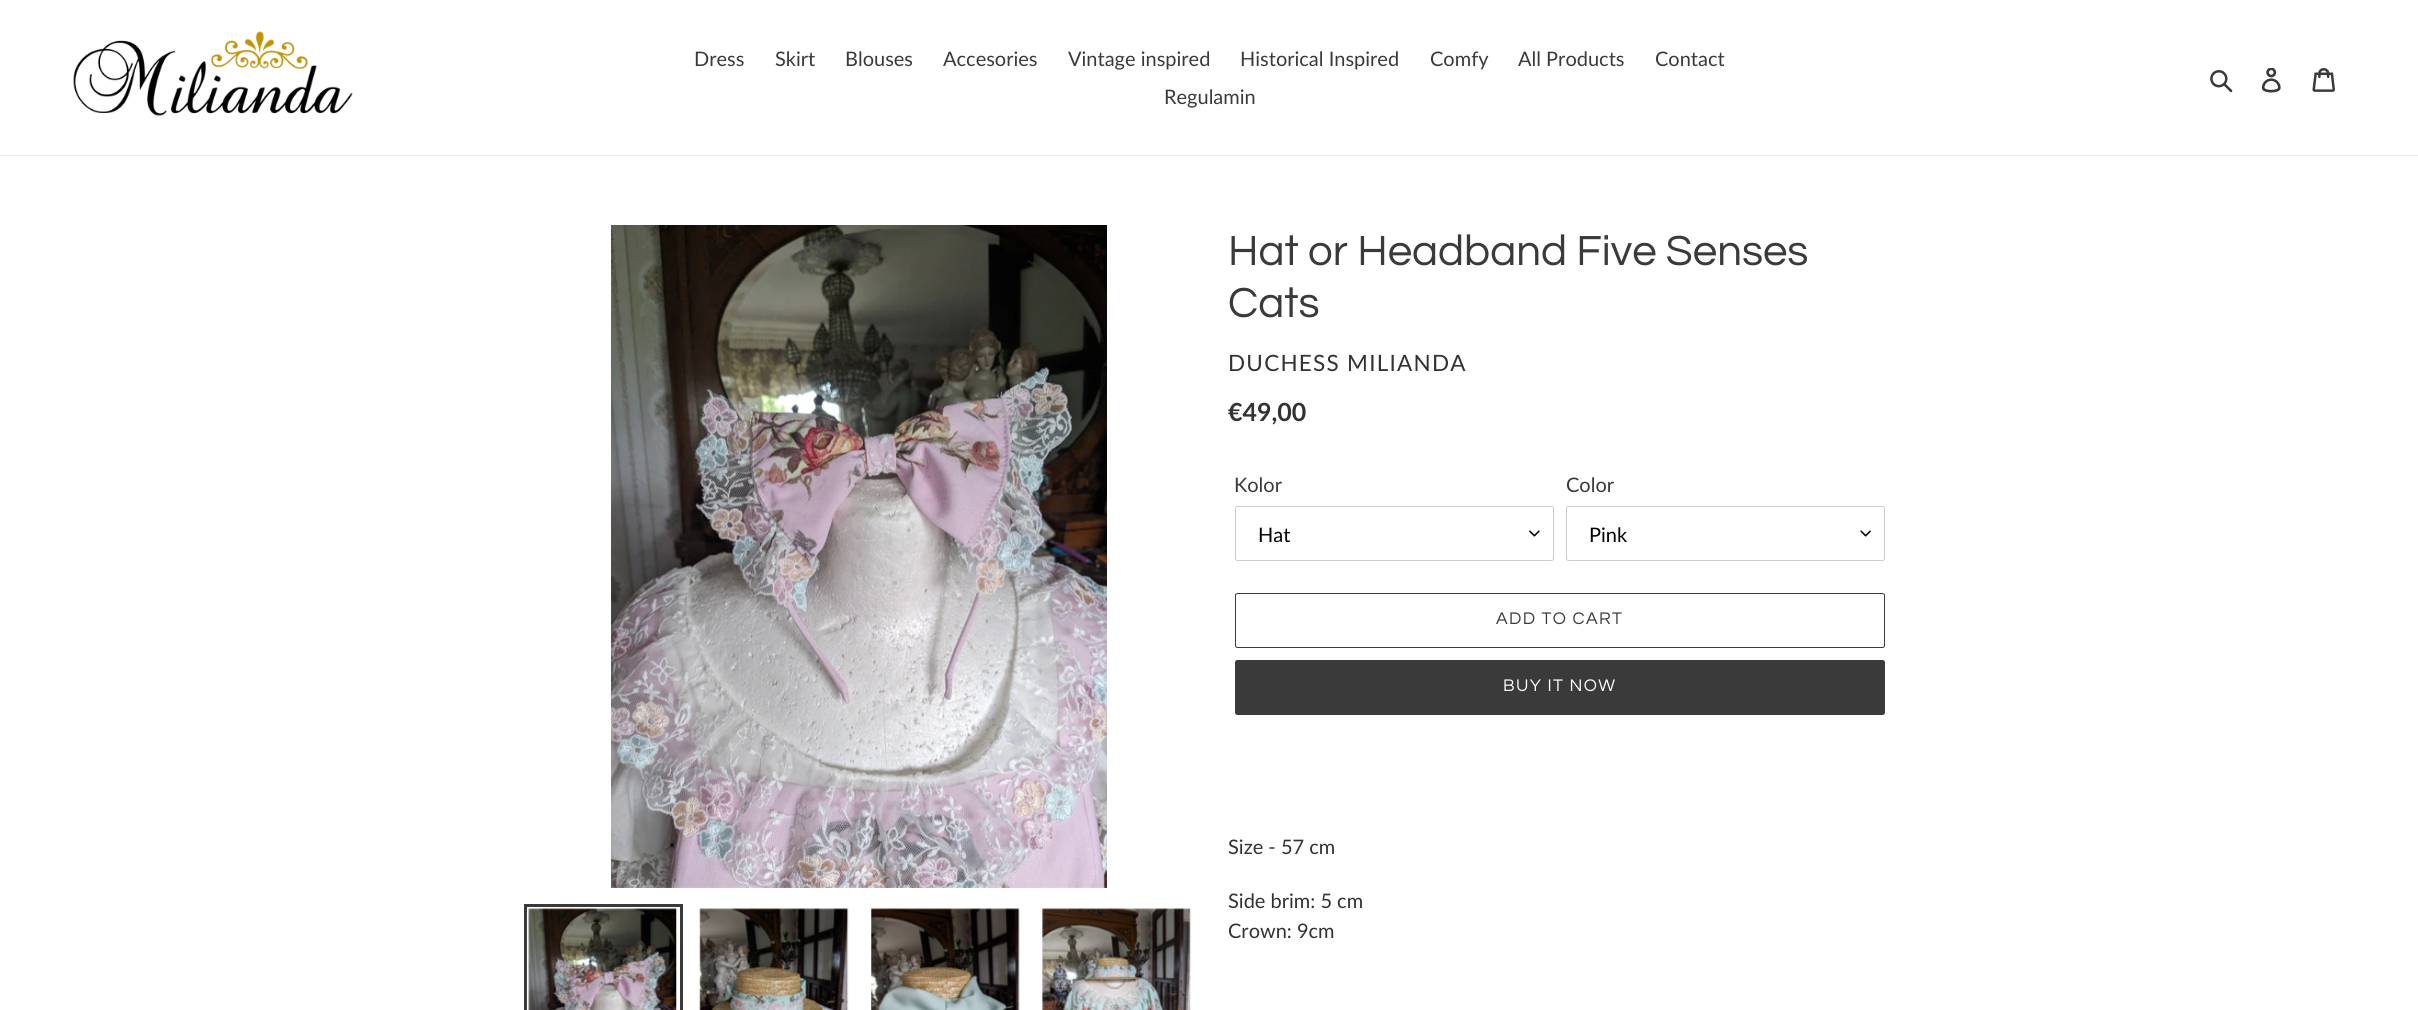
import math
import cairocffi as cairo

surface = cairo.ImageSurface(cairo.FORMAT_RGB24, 2418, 1010)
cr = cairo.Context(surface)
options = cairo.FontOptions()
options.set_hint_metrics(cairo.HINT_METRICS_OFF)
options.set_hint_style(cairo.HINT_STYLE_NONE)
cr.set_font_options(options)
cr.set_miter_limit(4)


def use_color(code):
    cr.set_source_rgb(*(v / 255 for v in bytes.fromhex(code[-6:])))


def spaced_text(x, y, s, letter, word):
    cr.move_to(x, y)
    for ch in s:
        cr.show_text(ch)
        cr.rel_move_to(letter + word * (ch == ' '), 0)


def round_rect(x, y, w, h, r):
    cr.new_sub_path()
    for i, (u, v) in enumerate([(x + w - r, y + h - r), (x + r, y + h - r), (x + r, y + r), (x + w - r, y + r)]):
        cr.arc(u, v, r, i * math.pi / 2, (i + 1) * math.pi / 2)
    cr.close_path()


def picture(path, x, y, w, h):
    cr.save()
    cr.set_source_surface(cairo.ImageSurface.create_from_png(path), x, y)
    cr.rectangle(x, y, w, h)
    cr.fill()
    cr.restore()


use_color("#ffffff")
cr.paint()
use_color("#ebebeb")
cr.rectangle(0, 155, 2418, 1)
cr.fill()
picture("img1.png", 73, 31, 280, 85)
cr.select_font_face("Lato")
cr.set_font_size(20)
use_color("#3a3a3a")
cr.move_to(694, 66)
cr.show_text("Dress")
cr.move_to(775, 66)
cr.show_text("Skirt")
cr.move_to(845, 66)
cr.show_text("Blouses")
cr.move_to(943, 66)
cr.show_text("Accesories")
cr.move_to(1068, 66)
cr.show_text("Vintage inspired")
cr.move_to(1240, 66)
cr.show_text("Historical Inspired")
cr.move_to(1430, 66)
cr.show_text("Comfy")
cr.move_to(1518, 66)
cr.show_text("All Products")
cr.move_to(1655, 66)
cr.show_text("Contact")
cr.move_to(1164, 104)
cr.show_text("Regulamin")
picture("img2.png", 2210, 70, 23, 23)
picture("img3.png", 2261, 68, 20, 25)
picture("img4.png", 2312, 68, 23, 24)
picture("img5.png", 611, 225, 496, 663)
cr.rectangle(525.5, 905.5, 156, 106)
cr.set_line_width(3)
cr.stroke()
picture("img6.png", 528, 908, 149, 102)
picture("img7.png", 699, 908, 150, 102)
picture("img8.png", 871, 908, 149, 102)
picture("img9.png", 1042, 908, 149, 102)
cr.select_font_face("Questrial")
cr.set_font_size(43.75)
cr.move_to(1228, 265)
cr.show_text("Hat or Headband Five Senses")
cr.move_to(1228, 317)
cr.show_text("Cats")
cr.select_font_face("Lato")
cr.set_font_size(22.5)
use_color("#333232")
spaced_text(1228, 371, "DUCHESS MILIANDA", 1.25, 0)
cr.select_font_face("Lato", cairo.FONT_SLANT_NORMAL, cairo.FONT_WEIGHT_BOLD)
cr.set_font_size(25)
cr.move_to(1228, 421)
cr.show_text("€49,00")
cr.select_font_face("Lato")
cr.set_font_size(20)
use_color("#3a3a3a")
cr.move_to(1234, 492)
cr.show_text("Kolor")
picture("img10.png", 1529, 530, 11, 7)
round_rect(1235.5, 506.5, 318, 54, 2)
use_color("#cccccc")
cr.set_line_width(1)
cr.stroke()
use_color("#000000")
cr.move_to(1258, 542)
cr.show_text("Hat")
use_color("#3a3a3a")
cr.move_to(1566, 492)
cr.show_text("Color")
picture("img11.png", 1860, 530, 11, 7)
round_rect(1566.5, 506.5, 318, 54, 2)
use_color("#cccccc")
cr.stroke()
use_color("#000000")
cr.move_to(1589, 542)
cr.show_text("Pink")
round_rect(1235.5, 593.5, 649, 54, 2)
use_color("#3a3a3a")
cr.stroke()
cr.select_font_face("Questrial")
cr.set_font_size(17.5)
spaced_text(1496, 624, "ADD TO CART", 1.4, 0)
round_rect(1235, 660, 650, 55, 2.5)
cr.fill()
use_color("#ffffff")
spaced_text(1503, 691, "BUY IT NOW", 1.4, 0)
cr.select_font_face("Lato")
cr.set_font_size(20)
use_color("#333232")
cr.move_to(1228, 854)
cr.show_text("Size - 57 cm")
cr.move_to(1228, 908)
cr.show_text("Side brim: 5 cm")
cr.move_to(1228, 938)
cr.show_text("Crown: 9cm")
surface.write_to_png("result.png")
